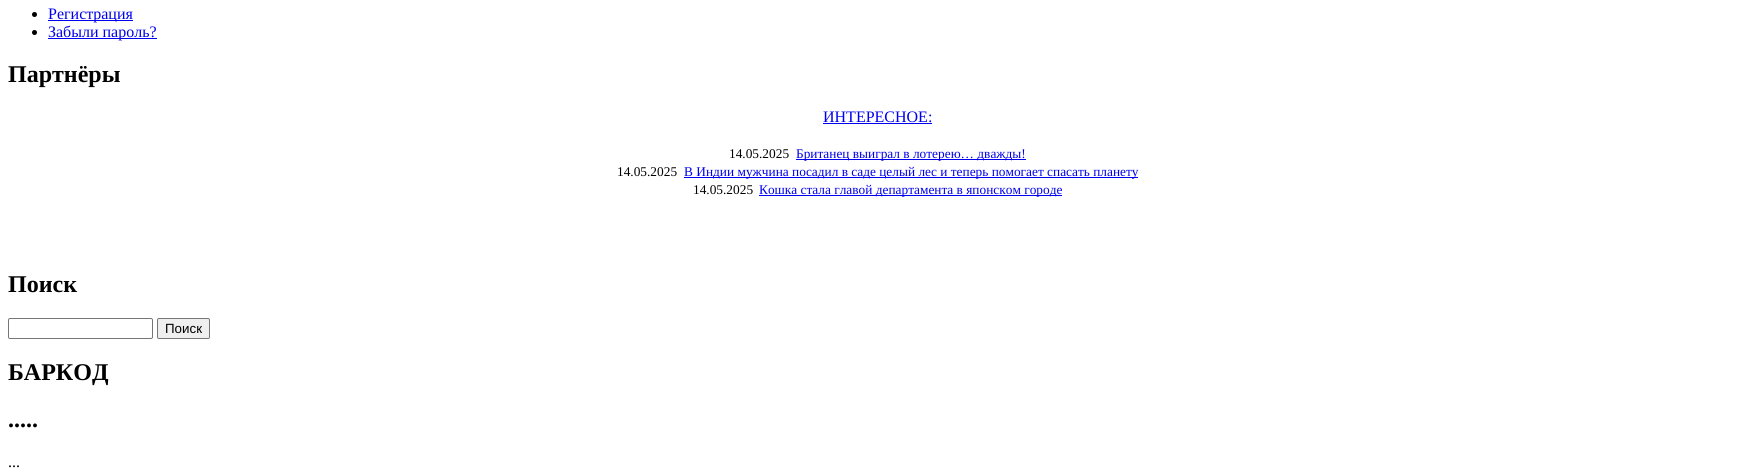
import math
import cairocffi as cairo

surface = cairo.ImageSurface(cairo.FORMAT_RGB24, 1755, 472)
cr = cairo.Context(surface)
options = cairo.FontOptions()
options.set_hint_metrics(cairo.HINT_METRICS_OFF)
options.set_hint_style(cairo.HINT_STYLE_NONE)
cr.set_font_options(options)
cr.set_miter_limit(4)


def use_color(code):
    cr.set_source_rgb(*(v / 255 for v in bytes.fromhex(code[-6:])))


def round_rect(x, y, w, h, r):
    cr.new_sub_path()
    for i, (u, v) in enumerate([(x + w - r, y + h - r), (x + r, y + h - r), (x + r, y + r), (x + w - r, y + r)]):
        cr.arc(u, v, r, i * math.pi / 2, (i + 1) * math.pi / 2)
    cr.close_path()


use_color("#ffffff")
cr.paint()
use_color("#000000")
cr.arc(34.5, 14.5, 2.5, 0, 2 * math.pi)
cr.fill()
use_color("#0000ee")
cr.rectangle(48, 20, 85, 1)
cr.fill()
cr.select_font_face("Liberation Serif")
cr.set_font_size(16)
cr.move_to(48, 19)
cr.show_text("Регистрация")
use_color("#000000")
cr.new_path()
cr.arc(34.5, 32.5, 2.5, 0, 2 * math.pi)
cr.fill()
use_color("#0000ee")
cr.rectangle(48, 38, 109, 1)
cr.fill()
cr.move_to(48, 37)
cr.show_text("Забыли пароль?")
cr.select_font_face("Liberation Serif", cairo.FONT_SLANT_NORMAL, cairo.FONT_WEIGHT_BOLD)
cr.set_font_size(24)
use_color("#000000")
cr.move_to(8, 82)
cr.show_text("Партнёры")
cr.select_font_face("Liberation Serif")
cr.set_font_size(16)
use_color("#0000ee")
cr.move_to(823, 122)
cr.show_text("ИНТЕРЕСНОЕ:")
cr.rectangle(823, 123, 109, 1)
cr.fill()
cr.set_font_size(13.35)
use_color("#000000")
cr.move_to(729, 158)
cr.show_text("14.05.2025")
use_color("#0000ee")
cr.rectangle(796, 159, 230, 1)
cr.fill()
cr.move_to(796, 158)
cr.show_text("Британец выиграл в лотерею… дважды!")
use_color("#000000")
cr.move_to(617, 176)
cr.show_text("14.05.2025")
use_color("#0000ee")
cr.rectangle(684, 177, 454, 1)
cr.fill()
cr.move_to(684, 176)
cr.show_text("В Индии мужчина посадил в саде целый лес и теперь помогает спасать планету")
use_color("#000000")
cr.move_to(693, 194)
cr.show_text("14.05.2025")
use_color("#0000ee")
cr.rectangle(759, 195, 303, 1)
cr.fill()
cr.move_to(759, 194)
cr.show_text("Кошка стала главой департамента в японском городе")
cr.select_font_face("Liberation Serif", cairo.FONT_SLANT_NORMAL, cairo.FONT_WEIGHT_BOLD)
cr.set_font_size(24)
use_color("#000000")
cr.move_to(8, 292)
cr.show_text("Поиск")
round_rect(8.5, 318.5, 144, 20, 1.5)
use_color("#767676")
cr.set_line_width(1)
cr.stroke()
use_color("#efefef")
round_rect(157.5, 318.5, 52, 20, 1.5)
cr.fill_preserve()
use_color("#767676")
cr.stroke()
cr.select_font_face("Liberation Sans")
cr.set_font_size(13.35)
use_color("#000000")
cr.move_to(165, 333)
cr.show_text("Поиск")
cr.select_font_face("Liberation Serif", cairo.FONT_SLANT_NORMAL, cairo.FONT_WEIGHT_BOLD)
cr.set_font_size(24)
cr.move_to(8, 380)
cr.show_text("БАРКОД")
cr.move_to(8, 427)
cr.show_text(".....")
cr.select_font_face("Liberation Serif")
cr.set_font_size(16)
cr.move_to(8, 467)
cr.show_text("...")
surface.write_to_png("result.png")
